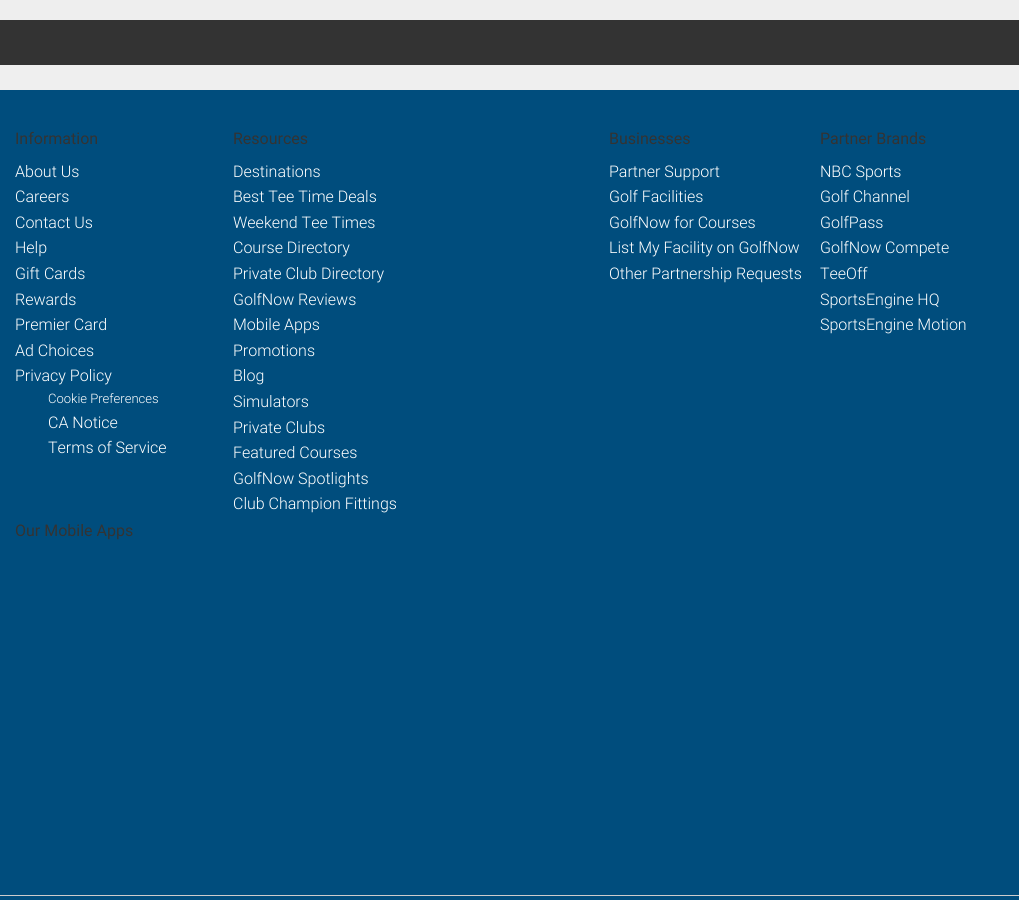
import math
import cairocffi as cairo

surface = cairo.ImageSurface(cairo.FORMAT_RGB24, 1019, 900)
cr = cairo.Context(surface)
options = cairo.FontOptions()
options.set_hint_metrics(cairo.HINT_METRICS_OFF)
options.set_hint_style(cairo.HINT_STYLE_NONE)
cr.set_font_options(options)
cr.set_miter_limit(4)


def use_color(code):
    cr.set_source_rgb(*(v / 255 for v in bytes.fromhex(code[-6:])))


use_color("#ffffff")
cr.paint()
gradient = cairo.LinearGradient(509, 0, 510, 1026)
gradient.add_color_stop_rgba(0, 0.933, 0.933, 0.933, 1)
gradient.add_color_stop_rgba(1, 1, 1, 1, 1)
cr.set_source(gradient)
cr.rectangle(0, 0, 1019, 90)
cr.fill()
use_color("#333333")
cr.rectangle(0, 20, 1019, 45)
cr.fill()
use_color("#004d7d")
cr.rectangle(0, 90, 1019, 810)
cr.fill()
cr.select_font_face("Roboto")
cr.set_font_size(16)
use_color("#333333")
cr.move_to(15, 144)
cr.show_text("Information")
cr.select_font_face("Roboto Light")
use_color("#ffffff")
cr.move_to(15, 177)
cr.show_text("About Us")
cr.move_to(15, 202)
cr.show_text("Careers")
cr.move_to(15, 228)
cr.show_text("Contact Us")
cr.move_to(15, 253)
cr.show_text("Help")
cr.move_to(15, 279)
cr.show_text("Gift Cards")
cr.move_to(15, 305)
cr.show_text("Rewards")
cr.move_to(15, 330)
cr.show_text("Premier Card")
cr.move_to(15, 356)
cr.show_text("Ad Choices")
cr.move_to(15, 381)
cr.show_text("Privacy Policy")
cr.set_font_size(13)
cr.move_to(48, 403)
cr.show_text("Cookie Preferences")
cr.set_font_size(16)
cr.move_to(48, 428)
cr.show_text("CA Notice")
cr.move_to(48, 453)
cr.show_text("Terms of Service")
cr.select_font_face("Roboto")
use_color("#333333")
cr.move_to(233, 144)
cr.show_text("Resources")
cr.select_font_face("Roboto Light")
use_color("#ffffff")
cr.move_to(233, 177)
cr.show_text("Destinations")
cr.move_to(233, 202)
cr.show_text("Best Tee Time Deals")
cr.move_to(233, 228)
cr.show_text("Weekend Tee Times")
cr.move_to(233, 253)
cr.show_text("Course Directory")
cr.move_to(233, 279)
cr.show_text("Private Club Directory")
cr.move_to(233, 305)
cr.show_text("GolfNow Reviews")
cr.move_to(233, 330)
cr.show_text("Mobile Apps")
cr.move_to(233, 356)
cr.show_text("Promotions")
cr.move_to(233, 381)
cr.show_text("Blog")
cr.move_to(233, 407)
cr.show_text("Simulators")
cr.move_to(233, 433)
cr.show_text("Private Clubs")
cr.move_to(233, 458)
cr.show_text("Featured Courses")
cr.move_to(233, 484)
cr.show_text("GolfNow Spotlights")
cr.move_to(233, 509)
cr.show_text("Club Champion Fittings")
cr.select_font_face("Roboto")
use_color("#333333")
cr.move_to(609, 144)
cr.show_text("Businesses")
cr.select_font_face("Roboto Light")
use_color("#ffffff")
cr.move_to(609, 177)
cr.show_text("Partner Support")
cr.move_to(609, 202)
cr.show_text("Golf Facilities")
cr.move_to(609, 228)
cr.show_text("GolfNow for Courses")
cr.move_to(609, 253)
cr.show_text("List My Facility on GolfNow")
cr.move_to(609, 279)
cr.show_text("Other Partnership Requests")
cr.select_font_face("Roboto")
use_color("#333333")
cr.move_to(820, 144)
cr.show_text("Partner Brands")
cr.select_font_face("Roboto Light")
use_color("#ffffff")
cr.move_to(820, 177)
cr.show_text("NBC Sports")
cr.move_to(820, 202)
cr.show_text("Golf Channel")
cr.move_to(820, 228)
cr.show_text("GolfPass")
cr.move_to(820, 253)
cr.show_text("GolfNow Compete")
cr.move_to(820, 279)
cr.show_text("TeeOff")
cr.move_to(820, 305)
cr.show_text("SportsEngine HQ")
cr.move_to(820, 330)
cr.show_text("SportsEngine Motion")
cr.select_font_face("Roboto")
use_color("#333333")
cr.move_to(15, 536)
cr.show_text("Our Mobile Apps")
use_color("#cccccc")
cr.rectangle(0, 895, 1019, 1)
cr.fill()
surface.write_to_png("result.png")
